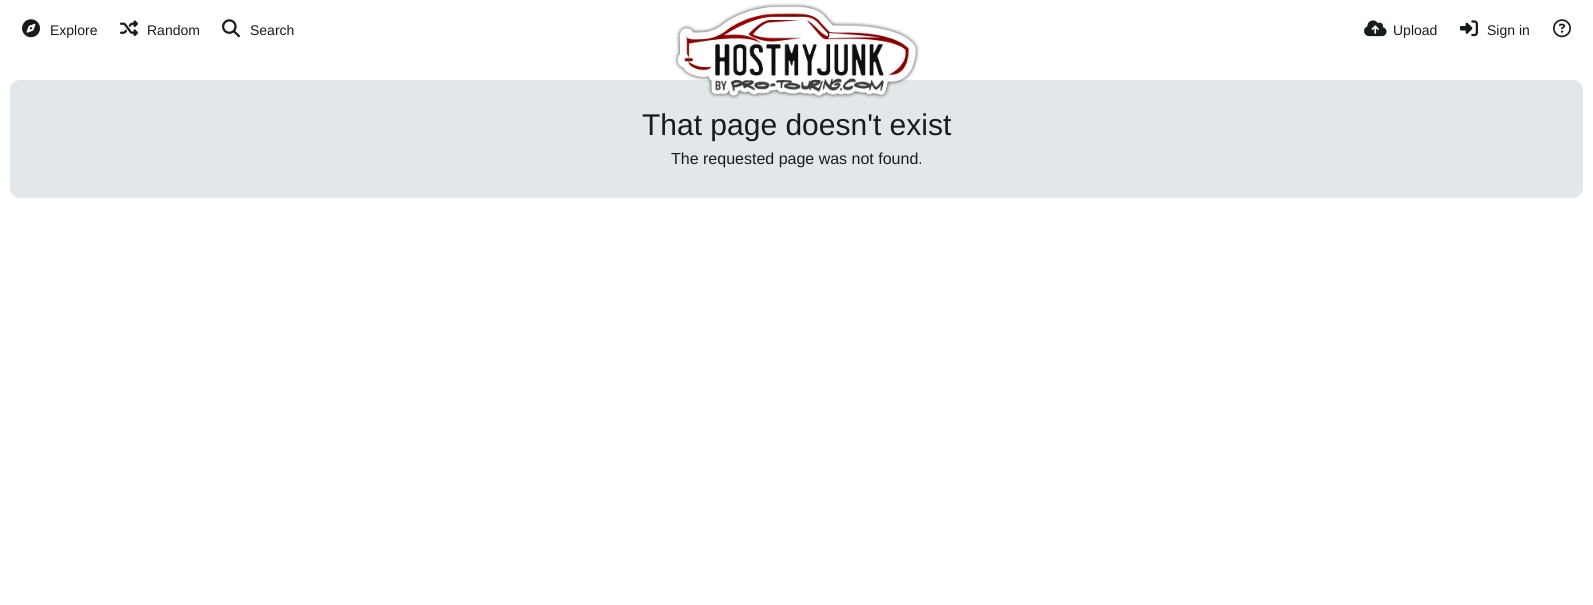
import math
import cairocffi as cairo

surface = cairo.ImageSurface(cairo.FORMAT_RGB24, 1593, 605)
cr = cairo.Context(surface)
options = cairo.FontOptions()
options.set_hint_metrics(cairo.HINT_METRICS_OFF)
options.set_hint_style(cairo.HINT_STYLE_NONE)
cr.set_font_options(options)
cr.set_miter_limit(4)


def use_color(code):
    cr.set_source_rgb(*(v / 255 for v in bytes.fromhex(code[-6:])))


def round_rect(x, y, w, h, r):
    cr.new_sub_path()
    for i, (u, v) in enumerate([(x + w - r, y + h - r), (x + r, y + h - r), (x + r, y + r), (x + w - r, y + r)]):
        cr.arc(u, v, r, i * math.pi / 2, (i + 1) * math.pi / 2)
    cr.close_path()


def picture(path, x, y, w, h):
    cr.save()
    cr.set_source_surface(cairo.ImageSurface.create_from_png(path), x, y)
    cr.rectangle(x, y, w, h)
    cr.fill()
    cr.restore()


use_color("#ffffff")
cr.paint()
picture("img1.png", 22, 19, 18, 19)
cr.select_font_face("Liberation Sans")
cr.set_font_size(14)
use_color("#161c1d")
cr.move_to(50, 35)
cr.show_text("Explore")
picture("img2.png", 120, 20, 18, 17)
cr.move_to(147, 35)
cr.show_text("Random")
picture("img3.png", 222, 19, 18, 19)
cr.move_to(250, 35)
cr.show_text("Search")
use_color("#e2e8e9")
round_rect(10, 80, 1573, 118, 10)
cr.fill()
picture("img4.png", 674, 3, 245, 96)
picture("img5.png", 1364, 20, 23, 17)
use_color("#161c1d")
cr.move_to(1393, 35)
cr.show_text("Upload")
picture("img6.png", 1460, 20, 18, 17)
cr.move_to(1487, 35)
cr.show_text("Sign in")
picture("img7.png", 1553, 19, 18, 19)
cr.set_font_size(30)
cr.move_to(642, 135)
cr.show_text("That page doesn't exist")
cr.set_font_size(16)
cr.move_to(671, 164)
cr.show_text("The requested page was not found.")
surface.write_to_png("result.png")
